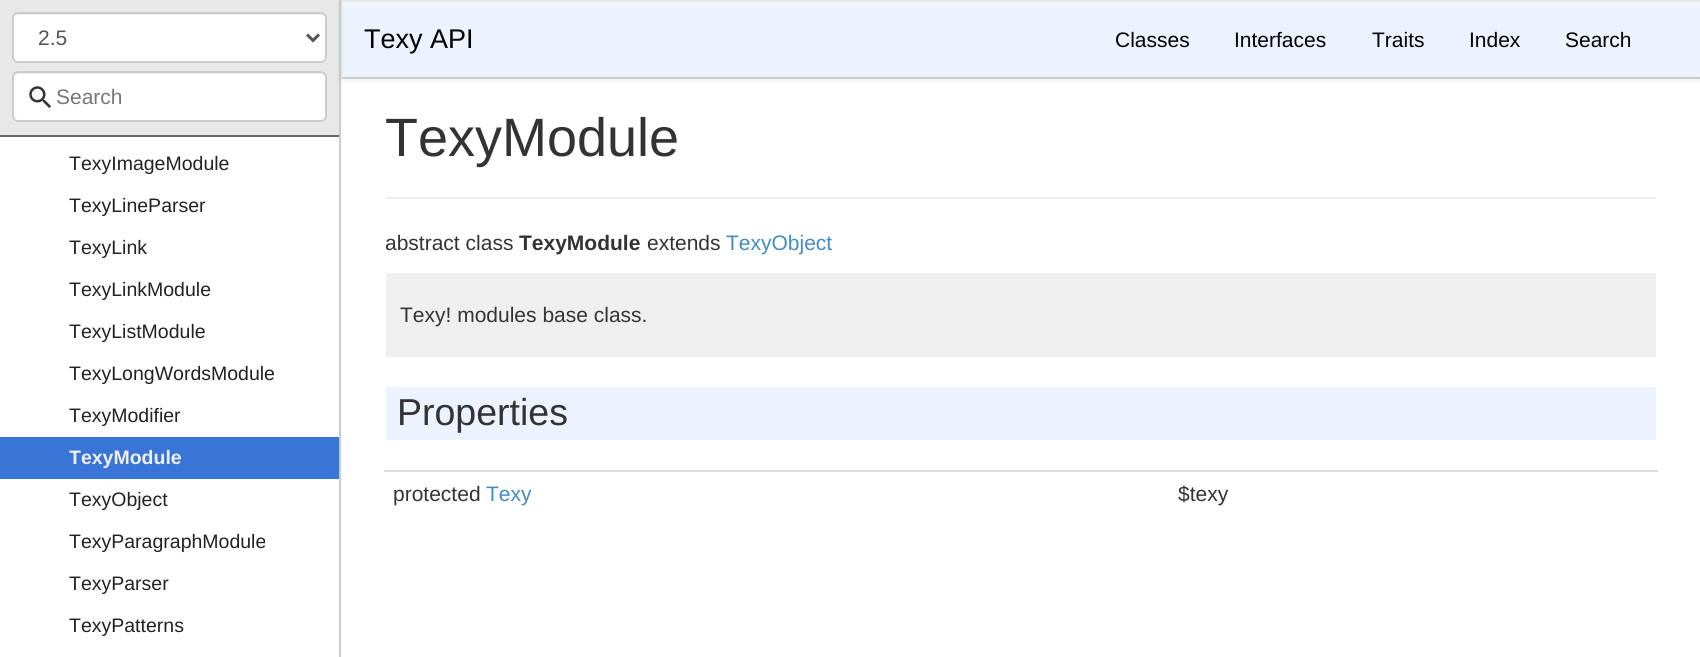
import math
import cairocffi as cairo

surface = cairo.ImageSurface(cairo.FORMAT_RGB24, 1700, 657)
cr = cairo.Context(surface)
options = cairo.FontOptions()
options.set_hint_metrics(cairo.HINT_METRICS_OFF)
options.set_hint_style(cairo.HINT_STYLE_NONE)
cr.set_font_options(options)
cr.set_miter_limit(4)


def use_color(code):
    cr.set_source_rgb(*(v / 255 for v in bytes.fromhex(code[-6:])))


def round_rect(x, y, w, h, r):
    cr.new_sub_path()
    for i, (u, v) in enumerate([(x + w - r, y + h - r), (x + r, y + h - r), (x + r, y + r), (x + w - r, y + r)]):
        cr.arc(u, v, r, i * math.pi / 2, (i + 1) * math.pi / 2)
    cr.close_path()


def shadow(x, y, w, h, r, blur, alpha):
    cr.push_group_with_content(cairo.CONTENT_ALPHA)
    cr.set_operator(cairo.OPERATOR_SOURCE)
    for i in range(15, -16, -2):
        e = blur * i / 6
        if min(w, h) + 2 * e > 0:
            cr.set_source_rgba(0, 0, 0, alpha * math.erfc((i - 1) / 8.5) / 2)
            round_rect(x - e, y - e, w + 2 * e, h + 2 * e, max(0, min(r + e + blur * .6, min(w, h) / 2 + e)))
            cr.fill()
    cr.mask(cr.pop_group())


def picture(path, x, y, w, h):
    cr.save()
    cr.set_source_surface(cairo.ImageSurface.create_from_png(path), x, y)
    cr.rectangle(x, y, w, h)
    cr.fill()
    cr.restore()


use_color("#ffffff")
cr.paint()
use_color("#cccccc")
cr.rectangle(339, 0, 2, 657)
cr.fill()
use_color("#e8e8e8")
cr.rectangle(0, 0, 339, 135)
cr.fill()
use_color("#666666")
cr.rectangle(0, 135, 339, 2)
cr.fill()
use_color("#ffffff")
round_rect(12, 12, 315, 51, 6)
cr.fill()
use_color("#ececec")
cr.new_path()
cr.move_to(18, 15)
cr.line_to(321, 15)
cr.curve_to(323, 15, 326, 17, 326, 20)
cr.curve_to(326, 17, 324, 14, 321, 14)
cr.line_to(19, 14)
cr.curve_to(16, 14, 14, 17, 14, 20)
cr.curve_to(14, 17, 16, 15, 18, 15)
cr.close_path()
cr.fill()
round_rect(13, 13, 313, 49, 5)
use_color("#cccccc")
cr.stroke()
cr.new_path()
cr.move_to(307, 34.5)
cr.line_to(313, 40.5)
cr.line_to(319, 34.5)
use_color("#555555")
cr.set_line_width(3)
cr.stroke()
cr.select_font_face("Liberation Sans")
cr.set_font_size(21)
cr.move_to(38, 45)
cr.show_text("2.5")
use_color("#ffffff")
round_rect(12, 71, 315, 51, 6)
cr.fill()
use_color("#ececec")
cr.new_path()
cr.move_to(18, 74)
cr.line_to(321, 74)
cr.curve_to(323, 74, 326, 76, 326, 78)
cr.curve_to(326, 75, 324, 72, 321, 72)
cr.line_to(19, 72)
cr.curve_to(16, 72, 14, 75, 14, 78)
cr.curve_to(14, 76, 16, 74, 18, 74)
cr.close_path()
cr.fill()
round_rect(13, 72, 313, 49, 5)
use_color("#cccccc")
cr.set_line_width(2)
cr.stroke()
picture("img1.png", 29, 86, 22, 22)
use_color("#777777")
cr.move_to(56, 104)
cr.show_text("Search")
cr.set_font_size(19.5)
use_color("#222222")
cr.move_to(69, 170)
cr.show_text("TexyImageModule")
cr.move_to(69, 212)
cr.show_text("TexyLineParser")
cr.move_to(69, 254)
cr.show_text("TexyLink")
cr.move_to(69, 296)
cr.show_text("TexyLinkModule")
cr.move_to(69, 338)
cr.show_text("TexyListModule")
cr.move_to(69, 380)
cr.show_text("TexyLongWordsModule")
cr.move_to(69, 422)
cr.show_text("TexyModifier")
use_color("#3875d7")
cr.rectangle(0, 437, 339, 42)
cr.fill()
cr.select_font_face("Liberation Sans", cairo.FONT_SLANT_NORMAL, cairo.FONT_WEIGHT_BOLD)
use_color("#eeeeee")
cr.move_to(69, 464)
cr.show_text("TexyModule")
cr.select_font_face("Liberation Sans")
use_color("#222222")
cr.move_to(69, 506)
cr.show_text("TexyObject")
cr.move_to(69, 548)
cr.show_text("TexyParagraphModule")
cr.move_to(69, 590)
cr.show_text("TexyParser")
cr.move_to(69, 632)
cr.show_text("TexyPatterns")
use_color("#000000")
shadow(341, 2, 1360, 78, 0, 4, 0.07)
use_color("#edf3fe")
cr.rectangle(343, 4, 1357, 73)
cr.fill()
use_color("#f0f5fe")
cr.rectangle(342, 2, 1358, 2)
cr.fill()
use_color("#e7e7e7")
cr.rectangle(341, 0, 1359, 2)
cr.fill()
use_color("#cccccc")
cr.rectangle(341, 77, 1359, 2)
cr.fill()
use_color("#e7e7e7")
cr.rectangle(341, 0, 2, 78)
cr.fill()
cr.set_font_size(27)
use_color("#000000")
cr.move_to(364, 48)
cr.show_text("Texy API")
cr.set_font_size(21)
cr.move_to(1115, 47)
cr.show_text("Classes")
cr.move_to(1234, 47)
cr.show_text("Interfaces")
cr.move_to(1372, 47)
cr.show_text("Traits")
cr.move_to(1469, 47)
cr.show_text("Index")
cr.move_to(1565, 47)
cr.show_text("Search")
use_color("#eeeeee")
cr.rectangle(386, 197, 1270, 2)
cr.fill()
cr.set_font_size(54)
use_color("#333333")
cr.move_to(385, 156)
cr.show_text("TexyModule")
cr.set_font_size(21)
cr.move_to(385, 250)
cr.show_text("abstract class")
cr.select_font_face("Liberation Sans", cairo.FONT_SLANT_NORMAL, cairo.FONT_WEIGHT_BOLD)
cr.move_to(519, 250)
cr.show_text("TexyModule")
cr.select_font_face("Liberation Sans")
cr.move_to(647, 250)
cr.show_text("extends")
use_color("#428bca")
cr.move_to(726, 250)
cr.show_text("TexyObject")
use_color("#efefef")
cr.rectangle(386, 273, 1270, 84)
cr.fill()
use_color("#333333")
cr.move_to(400, 322)
cr.show_text("Texy! modules base class.")
use_color("#edf3fe")
cr.rectangle(386, 387, 1270, 53)
cr.fill()
cr.set_font_size(37.5)
use_color("#333333")
cr.move_to(397, 425)
cr.show_text("Properties")
use_color("#dddddd")
cr.rectangle(384, 470, 1274, 2)
cr.fill()
cr.set_font_size(21)
use_color("#333333")
cr.move_to(393, 501)
cr.show_text("protected")
use_color("#428bca")
cr.move_to(486, 501)
cr.show_text("Texy")
use_color("#333333")
cr.move_to(1178, 501)
cr.show_text("$texy")
surface.write_to_png("result.png")
